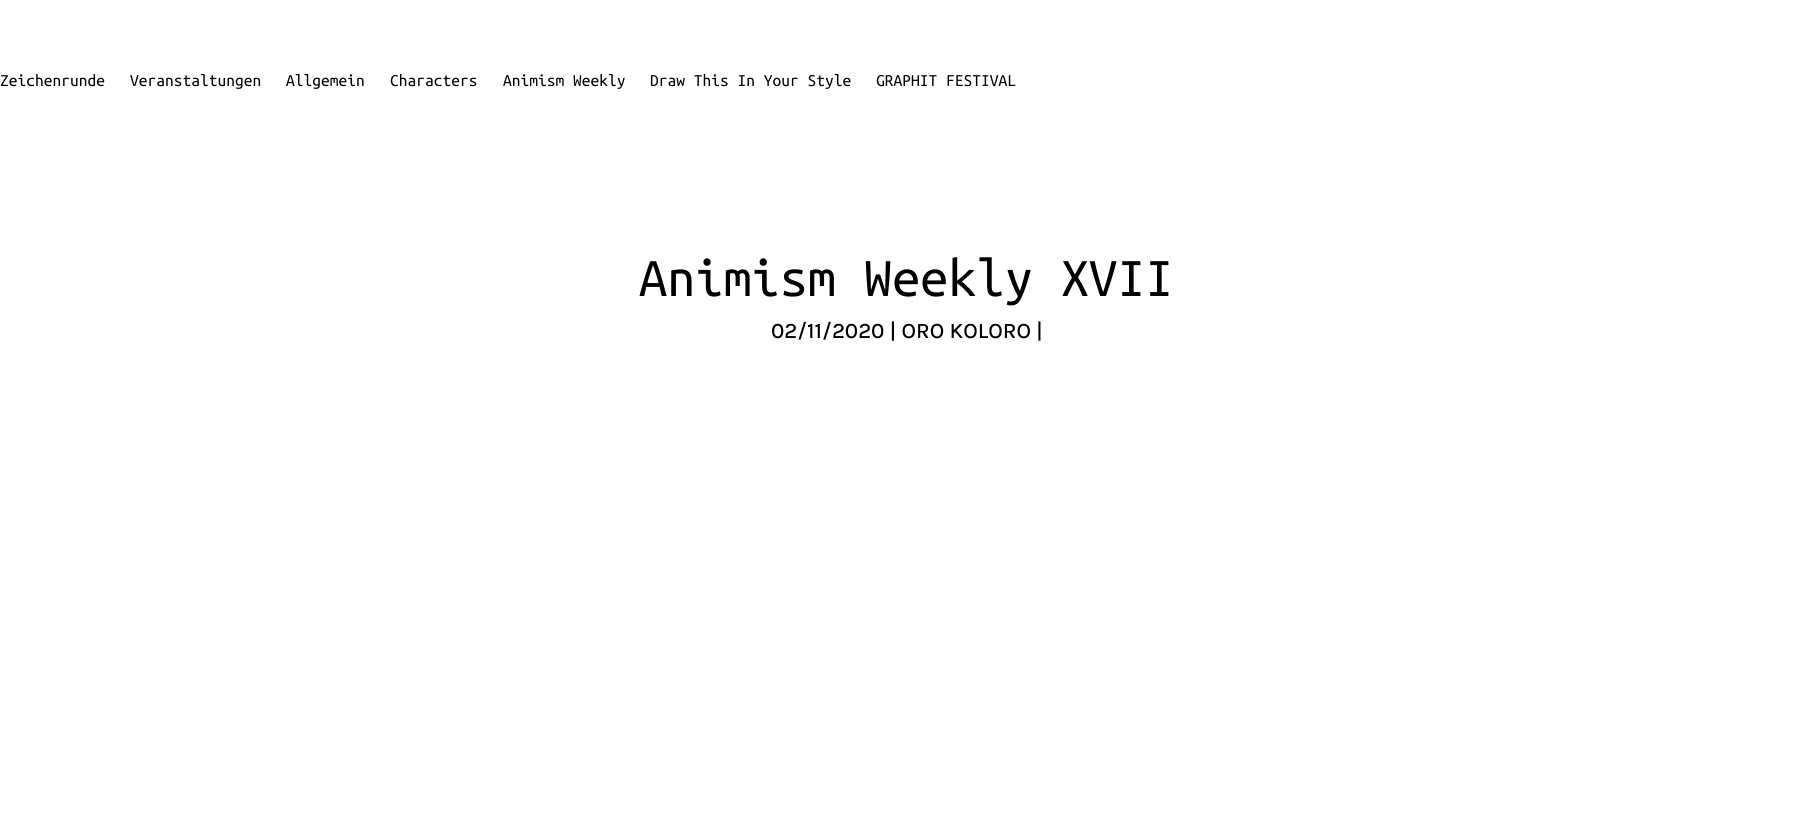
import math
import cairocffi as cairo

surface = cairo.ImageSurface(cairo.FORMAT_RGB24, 1812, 838)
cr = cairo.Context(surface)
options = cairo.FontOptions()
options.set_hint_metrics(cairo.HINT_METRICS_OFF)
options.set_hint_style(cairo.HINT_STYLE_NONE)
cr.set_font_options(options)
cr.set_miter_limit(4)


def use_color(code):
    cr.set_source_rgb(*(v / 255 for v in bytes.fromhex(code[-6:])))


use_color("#ffffff")
cr.paint()
cr.select_font_face("Ubuntu Mono")
cr.set_font_size(17.5)
use_color("#000000")
cr.move_to(0, 86)
cr.show_text("Zeichenrunde")
cr.move_to(130, 86)
cr.show_text("Veranstaltungen")
cr.move_to(286, 86)
cr.show_text("Allgemein")
cr.move_to(390, 86)
cr.show_text("Characters")
cr.move_to(503, 86)
cr.show_text("Animism Weekly")
cr.move_to(650, 86)
cr.show_text("Draw This In Your Style")
cr.move_to(876, 86)
cr.show_text("GRAPHIT FESTIVAL")
cr.set_font_size(56.25)
cr.move_to(639, 296)
cr.show_text("Animism Weekly XVII")
cr.select_font_face("Karla Medium")
cr.set_font_size(21.9)
cr.move_to(771, 338)
cr.show_text("02/11/2020 | ORO KOLORO |")
surface.write_to_png("result.png")
